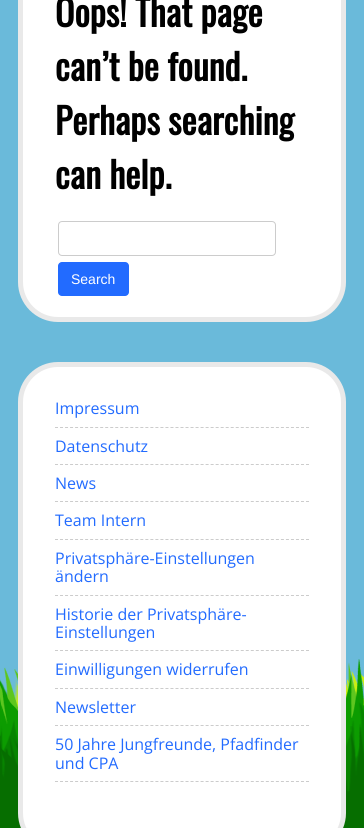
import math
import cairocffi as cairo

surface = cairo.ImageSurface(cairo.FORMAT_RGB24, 364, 828)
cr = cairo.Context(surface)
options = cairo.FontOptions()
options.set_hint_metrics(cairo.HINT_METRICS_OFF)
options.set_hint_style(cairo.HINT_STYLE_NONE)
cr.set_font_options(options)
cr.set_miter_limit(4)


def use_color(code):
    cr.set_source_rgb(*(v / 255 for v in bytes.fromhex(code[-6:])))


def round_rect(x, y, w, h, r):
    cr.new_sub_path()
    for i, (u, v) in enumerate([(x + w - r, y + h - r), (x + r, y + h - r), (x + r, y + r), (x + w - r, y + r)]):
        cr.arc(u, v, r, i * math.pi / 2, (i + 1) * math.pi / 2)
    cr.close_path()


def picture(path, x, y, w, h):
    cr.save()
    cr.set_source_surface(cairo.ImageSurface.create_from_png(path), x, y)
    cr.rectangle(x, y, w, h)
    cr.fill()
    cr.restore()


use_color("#6abada")
cr.paint()
use_color("#ffffff")
round_rect(20.5, -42.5, 323, 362, 37.5)
cr.fill_preserve()
use_color("#e9e9e9")
cr.set_line_width(5)
cr.stroke()
cr.select_font_face("Oswald", cairo.FONT_SLANT_NORMAL, cairo.FONT_WEIGHT_BOLD)
cr.set_font_size(36)
use_color("#000000")
cr.move_to(55, 27)
cr.show_text("Oops! That page")
cr.move_to(55, 81)
cr.show_text("can’t be found.")
cr.move_to(55, 135)
cr.show_text("Perhaps searching")
cr.move_to(55, 189)
cr.show_text("can help.")
round_rect(58.5, 221.5, 217, 34, 3.5)
use_color("#cccccc")
cr.set_line_width(1)
cr.stroke()
use_color("#226bff")
round_rect(58, 262, 71, 34, 4)
cr.fill()
cr.select_font_face("Liberation Sans")
cr.set_font_size(14)
use_color("#ffffff")
cr.move_to(71, 284)
cr.show_text("Search")
picture("img1.png", 0, 659, 364, 169)
round_rect(20.5, 364.5, 323, 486, 37.5)
cr.fill_preserve()
use_color("#e9e9e9")
cr.set_line_width(5)
cr.stroke()
cr.new_path()
cr.move_to(55, 427.5)
cr.line_to(309, 427.5)
use_color("#cccccc")
cr.set_line_width(1)
cr.set_dash([3, 2.02])
cr.stroke()
cr.select_font_face("Open Sans")
cr.set_font_size(16)
use_color("#226bff")
cr.move_to(55, 414)
cr.show_text("Impressum")
cr.new_path()
cr.move_to(55, 464.5)
cr.line_to(309, 464.5)
use_color("#cccccc")
cr.stroke()
use_color("#226bff")
cr.move_to(55, 452)
cr.show_text("Datenschutz")
cr.new_path()
cr.move_to(55, 501.5)
cr.line_to(309, 501.5)
use_color("#cccccc")
cr.stroke()
use_color("#226bff")
cr.move_to(55, 489)
cr.show_text("News")
cr.new_path()
cr.move_to(55, 539.5)
cr.line_to(309, 539.5)
use_color("#cccccc")
cr.stroke()
use_color("#226bff")
cr.move_to(55, 526)
cr.show_text("Team Intern")
cr.new_path()
cr.move_to(55, 595.5)
cr.line_to(309, 595.5)
use_color("#cccccc")
cr.stroke()
use_color("#226bff")
cr.move_to(55, 564)
cr.show_text("Privatsphäre-Einstellungen")
cr.move_to(55, 582)
cr.show_text("ändern")
cr.new_path()
cr.move_to(55, 650.5)
cr.line_to(309, 650.5)
use_color("#cccccc")
cr.stroke()
use_color("#226bff")
cr.move_to(55, 620)
cr.show_text("Historie der Privatsphäre-")
cr.move_to(55, 638)
cr.show_text("Einstellungen")
cr.new_path()
cr.move_to(55, 688.5)
cr.line_to(309, 688.5)
use_color("#cccccc")
cr.stroke()
use_color("#226bff")
cr.move_to(55, 675)
cr.show_text("Einwilligungen widerrufen")
cr.new_path()
cr.move_to(55, 725.5)
cr.line_to(309, 725.5)
use_color("#cccccc")
cr.stroke()
use_color("#226bff")
cr.move_to(55, 713)
cr.show_text("Newsletter")
cr.new_path()
cr.move_to(55, 781.5)
cr.line_to(309, 781.5)
use_color("#cccccc")
cr.stroke()
use_color("#226bff")
cr.move_to(55, 750)
cr.show_text("50 Jahre Jungfreunde, Pfadfinder")
cr.move_to(55, 769)
cr.show_text("und CPA")
surface.write_to_png("result.png")
